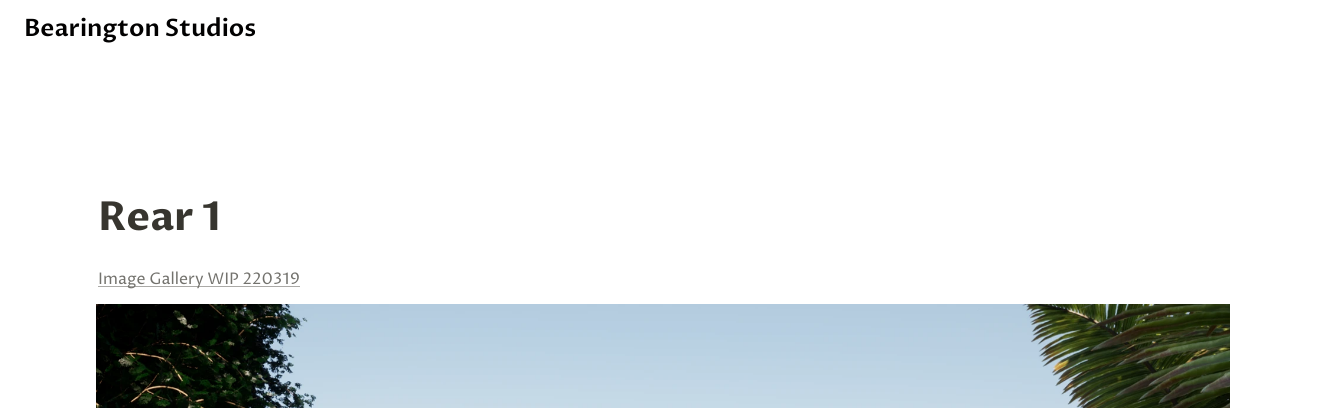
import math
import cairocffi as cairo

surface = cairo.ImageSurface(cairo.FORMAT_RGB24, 1326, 408)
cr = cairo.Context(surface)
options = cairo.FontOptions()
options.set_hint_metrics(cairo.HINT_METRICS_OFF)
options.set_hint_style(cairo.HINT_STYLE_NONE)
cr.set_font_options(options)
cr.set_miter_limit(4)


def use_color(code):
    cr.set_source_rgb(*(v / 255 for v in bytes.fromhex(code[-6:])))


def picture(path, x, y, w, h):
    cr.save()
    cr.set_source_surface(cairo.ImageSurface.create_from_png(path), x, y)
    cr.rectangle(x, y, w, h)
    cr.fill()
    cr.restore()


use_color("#ffffff")
cr.paint()
cr.select_font_face("Proza Libre SemiBold")
cr.set_font_size(24)
use_color("#020101")
cr.move_to(24, 36)
cr.show_text("Bearington Studios")
cr.select_font_face("Proza Libre", cairo.FONT_SLANT_NORMAL, cairo.FONT_WEIGHT_BOLD)
cr.set_font_size(40)
use_color("#37352f")
cr.move_to(98, 230)
cr.show_text("Rear 1")
use_color("#abaaa7")
cr.rectangle(98, 286, 202, 1)
cr.fill()
cr.select_font_face("Proza Libre")
cr.set_font_size(16)
use_color("#73726d")
cr.move_to(98, 284)
cr.show_text("Image Gallery WIP 220319")
picture("img1.png", 96, 304, 1134, 104)
surface.write_to_png("result.png")
